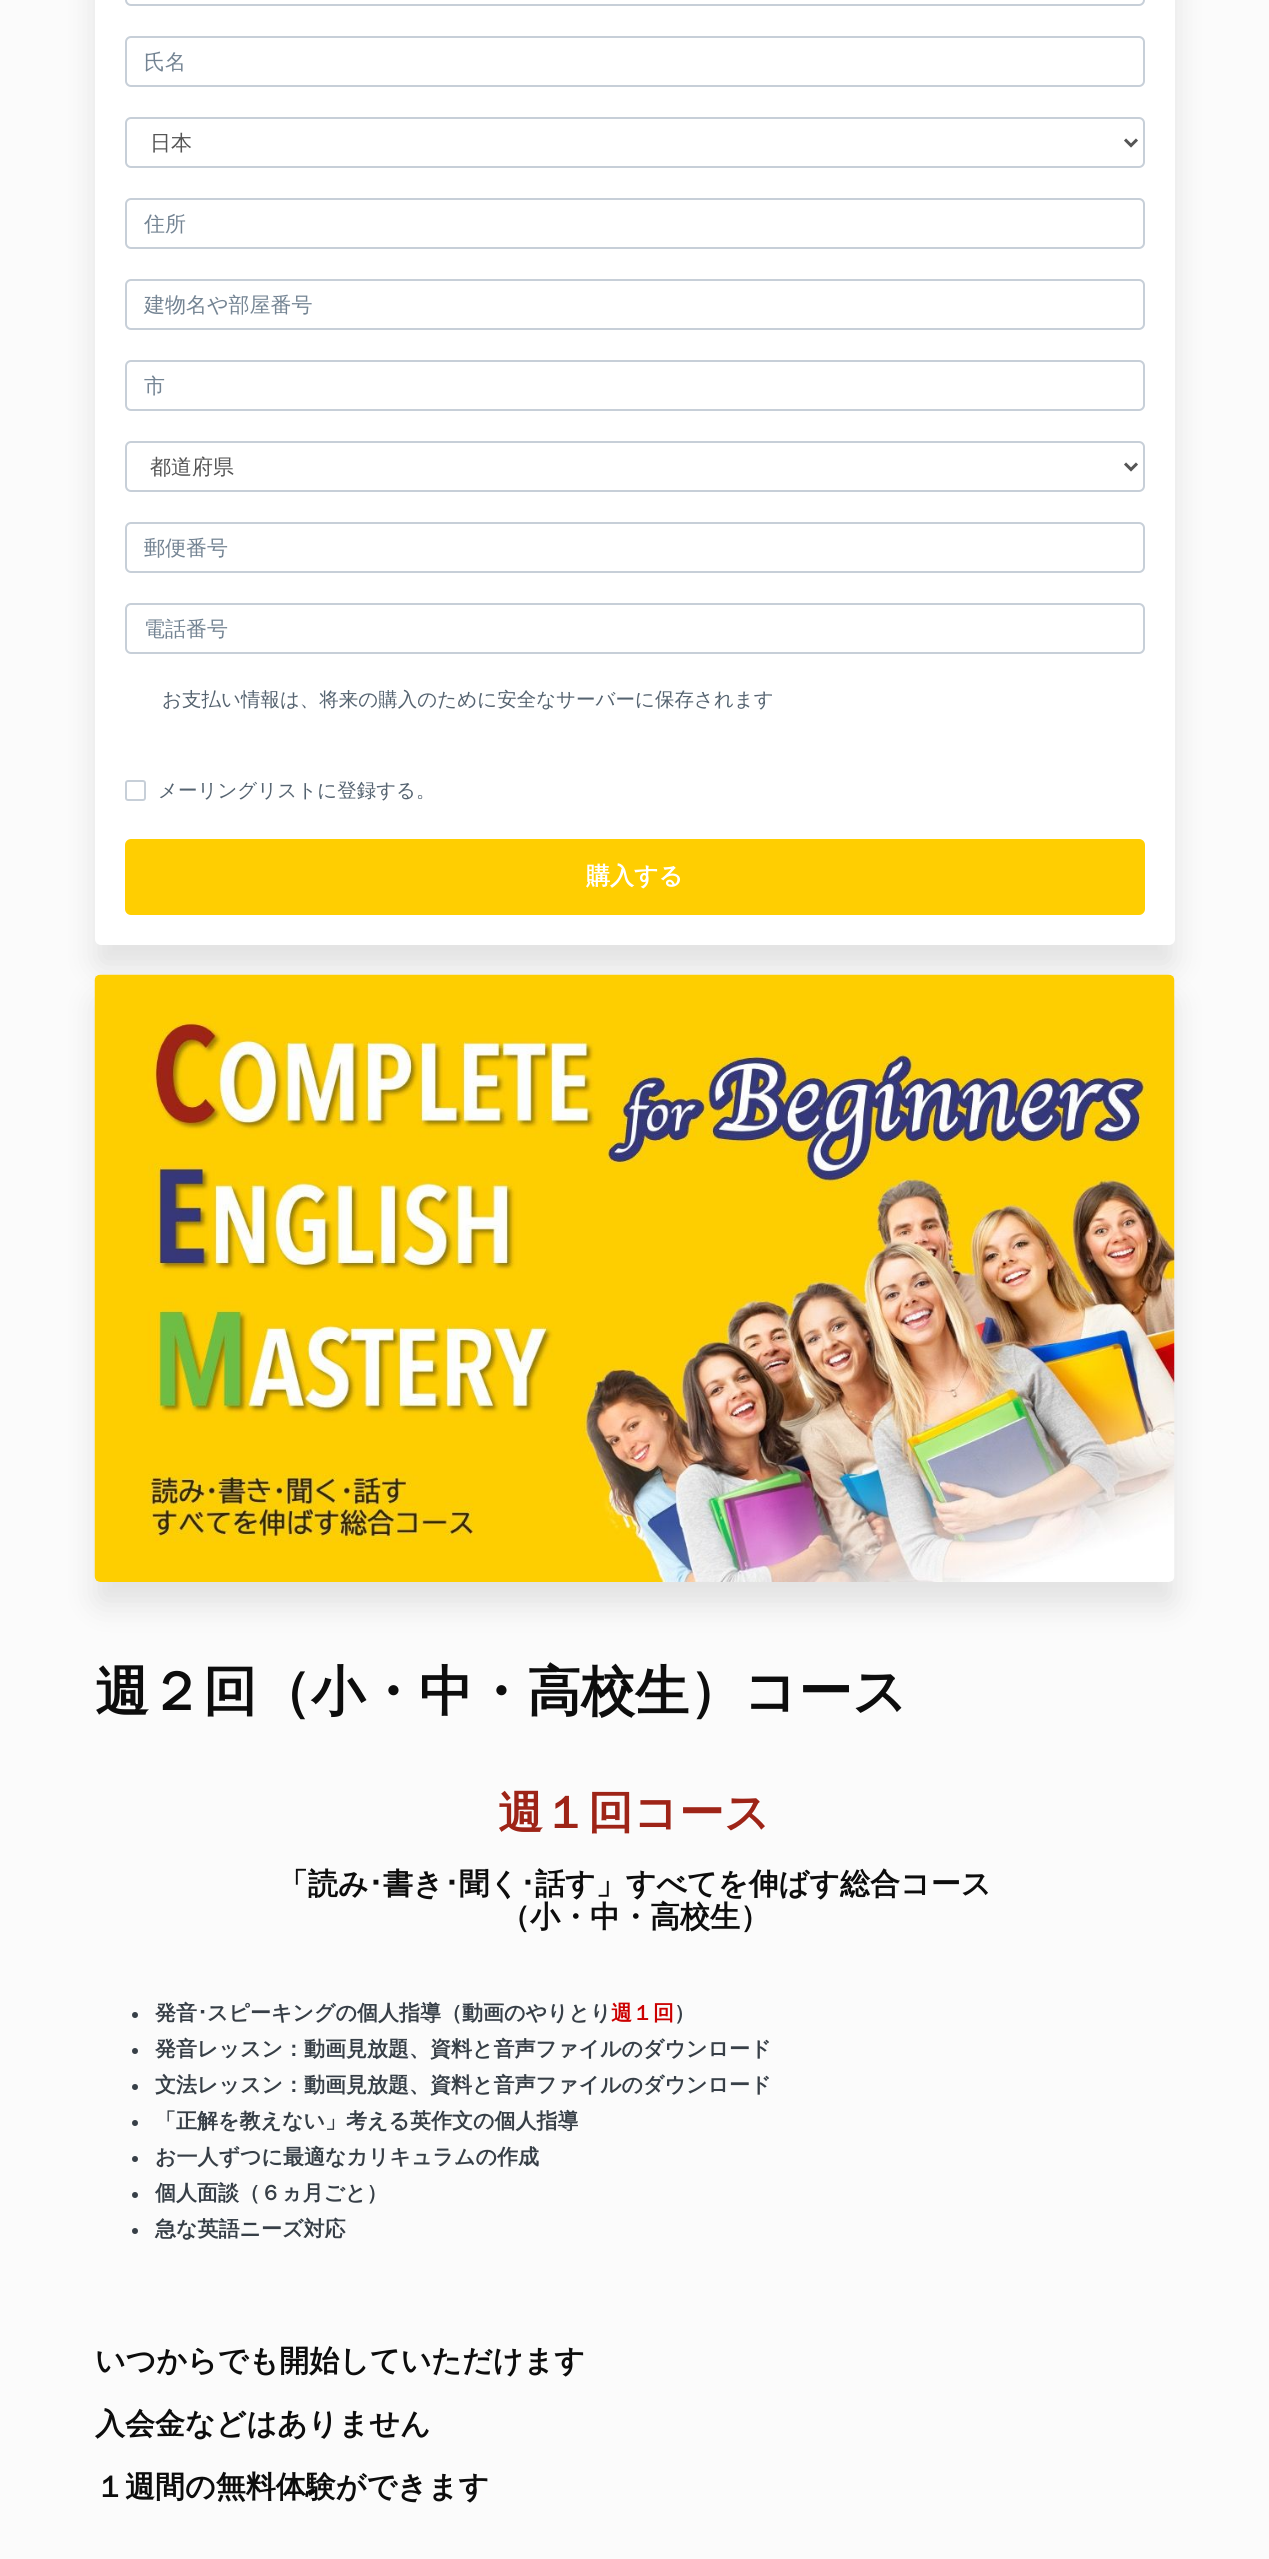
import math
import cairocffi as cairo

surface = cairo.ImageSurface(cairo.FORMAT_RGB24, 1269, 2559)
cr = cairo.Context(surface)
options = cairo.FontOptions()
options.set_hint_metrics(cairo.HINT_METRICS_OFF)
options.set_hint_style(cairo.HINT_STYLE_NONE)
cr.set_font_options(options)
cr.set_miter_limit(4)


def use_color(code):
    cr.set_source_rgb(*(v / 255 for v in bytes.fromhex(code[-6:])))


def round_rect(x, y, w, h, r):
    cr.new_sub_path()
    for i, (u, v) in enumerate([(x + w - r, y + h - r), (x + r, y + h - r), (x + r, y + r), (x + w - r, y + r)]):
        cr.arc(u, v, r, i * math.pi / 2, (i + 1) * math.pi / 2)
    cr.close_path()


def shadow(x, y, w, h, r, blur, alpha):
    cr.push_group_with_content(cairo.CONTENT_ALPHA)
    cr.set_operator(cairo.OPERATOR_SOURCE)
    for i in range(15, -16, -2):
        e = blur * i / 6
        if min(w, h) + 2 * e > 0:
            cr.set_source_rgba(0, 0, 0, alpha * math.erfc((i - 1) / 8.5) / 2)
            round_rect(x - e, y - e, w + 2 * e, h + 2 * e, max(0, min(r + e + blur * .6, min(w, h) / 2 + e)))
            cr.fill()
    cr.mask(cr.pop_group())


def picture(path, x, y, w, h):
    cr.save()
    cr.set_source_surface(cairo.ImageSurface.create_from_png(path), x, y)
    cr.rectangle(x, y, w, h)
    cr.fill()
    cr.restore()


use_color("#fbfbfb")
cr.paint()
use_color("#000000")
shadow(95, -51, 1080, 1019, 6, 15, 0.1)
use_color("#ffffff")
round_rect(95, -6, 1080, 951, 6)
cr.fill()
round_rect(126, -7, 1018, 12, 5)
use_color("#c7cfd8")
cr.stroke()
round_rect(126, 37, 1018, 49, 5)
cr.stroke()
cr.select_font_face("WenQuanYi Zen Hei Medium")
cr.set_font_size(21)
use_color("#748493")
cr.move_to(144, 69)
cr.show_text("氏名")
round_rect(126, 118, 1018, 49, 5)
use_color("#c7cfd8")
cr.stroke()
cr.new_path()
cr.move_to(1125, 139.5)
cr.line_to(1131, 145.5)
cr.line_to(1137, 139.5)
use_color("#555555")
cr.set_line_width(3)
cr.stroke()
cr.move_to(150, 150)
cr.show_text("日本")
round_rect(126, 199, 1018, 49, 5)
use_color("#c7cfd8")
cr.set_line_width(2)
cr.stroke()
use_color("#748493")
cr.move_to(144, 231)
cr.show_text("住所")
round_rect(126, 280, 1018, 49, 5)
use_color("#c7cfd8")
cr.stroke()
use_color("#748493")
cr.move_to(144, 312)
cr.show_text("建物名や部屋番号")
round_rect(126, 361, 1018, 49, 5)
use_color("#c7cfd8")
cr.stroke()
use_color("#748493")
cr.move_to(144, 393)
cr.show_text("市")
round_rect(126, 442, 1018, 49, 5)
use_color("#c7cfd8")
cr.stroke()
cr.new_path()
cr.move_to(1125, 463.5)
cr.line_to(1131, 469.5)
cr.line_to(1137, 463.5)
use_color("#555555")
cr.set_line_width(3)
cr.stroke()
cr.move_to(150, 474)
cr.show_text("都道府県")
round_rect(126, 523, 1018, 49, 5)
use_color("#c7cfd8")
cr.set_line_width(2)
cr.stroke()
use_color("#748493")
cr.move_to(144, 555)
cr.show_text("郵便番号")
round_rect(126, 604, 1018, 49, 5)
use_color("#c7cfd8")
cr.stroke()
use_color("#748493")
cr.move_to(144, 636)
cr.show_text("電話番号")
cr.set_font_size(19.5)
use_color("#556370")
cr.move_to(162, 706)
cr.show_text("お支払い情報は、将来の購入のために安全なサーバーに保存されます")
round_rect(126, 781, 19, 19, 2)
use_color("#c7cfd8")
cr.stroke()
use_color("#556370")
cr.move_to(158, 797)
cr.show_text("メーリングリストに登録する。")
use_color("#ffce01")
round_rect(126, 840, 1018, 74, 5)
cr.fill_preserve()
cr.stroke()
cr.select_font_face("WenQuanYi Zen Hei", cairo.FONT_SLANT_NORMAL, cairo.FONT_WEIGHT_BOLD)
cr.set_font_size(24)
use_color("#ffffff")
cr.move_to(586, 884)
cr.show_text("購入する")
use_color("#000000")
shadow(95, 998, 1080, 607, 6, 15, 0.1)
picture("img1.png", 94, 974, 1081, 608)
cr.set_font_size(54)
use_color("#0d0d0d")
cr.move_to(95, 1710)
cr.show_text("週２回（小・中・高校生）コース")
cr.set_font_size(45)
use_color("#9e2417")
cr.move_to(498, 1828)
cr.show_text("週１回コース")
cr.set_font_size(30)
use_color("#0d0d0d")
cr.move_to(278, 1894)
cr.show_text("「読み")
cr.select_font_face("IPAPGothic", cairo.FONT_SLANT_NORMAL, cairo.FONT_WEIGHT_BOLD)
cr.move_to(368, 1894)
cr.show_text("･")
cr.select_font_face("WenQuanYi Zen Hei", cairo.FONT_SLANT_NORMAL, cairo.FONT_WEIGHT_BOLD)
cr.move_to(383, 1894)
cr.show_text("書き")
cr.select_font_face("IPAPGothic", cairo.FONT_SLANT_NORMAL, cairo.FONT_WEIGHT_BOLD)
cr.move_to(444, 1894)
cr.show_text("･")
cr.select_font_face("WenQuanYi Zen Hei", cairo.FONT_SLANT_NORMAL, cairo.FONT_WEIGHT_BOLD)
cr.move_to(459, 1894)
cr.show_text("聞く")
cr.select_font_face("IPAPGothic", cairo.FONT_SLANT_NORMAL, cairo.FONT_WEIGHT_BOLD)
cr.move_to(520, 1894)
cr.show_text("･")
cr.select_font_face("WenQuanYi Zen Hei", cairo.FONT_SLANT_NORMAL, cairo.FONT_WEIGHT_BOLD)
cr.move_to(535, 1894)
cr.show_text("話す」すべてを伸ばす総合コース")
cr.move_to(500, 1927)
cr.show_text("（小・中・高校生）")
use_color("#373f47")
cr.new_path()
cr.arc(135, 2015, 3, 0, 2 * math.pi)
cr.fill()
cr.set_font_size(21)
cr.move_to(155, 2020)
cr.show_text("発音")
cr.select_font_face("IPAPGothic", cairo.FONT_SLANT_NORMAL, cairo.FONT_WEIGHT_BOLD)
cr.move_to(197, 2020)
cr.show_text("･")
cr.select_font_face("WenQuanYi Zen Hei", cairo.FONT_SLANT_NORMAL, cairo.FONT_WEIGHT_BOLD)
cr.move_to(207, 2020)
cr.show_text("スピーキングの個人指導（動画のやりとり")
use_color("#cc0000")
cr.move_to(611, 2020)
cr.show_text("週１回")
use_color("#373f47")
cr.move_to(674, 2020)
cr.show_text("）")
cr.new_path()
cr.arc(135, 2051, 3, 0, 2 * math.pi)
cr.fill()
cr.move_to(155, 2056)
cr.show_text("発音レッスン：動画見放題、資料と音声ファイルのダウンロード")
cr.new_path()
cr.arc(135, 2087, 3, 0, 2 * math.pi)
cr.fill()
cr.move_to(155, 2092)
cr.show_text("文法レッスン：動画見放題、資料と音声ファイルのダウンロード")
cr.new_path()
cr.arc(135, 2123, 3, 0, 2 * math.pi)
cr.fill()
cr.move_to(155, 2128)
cr.show_text("「正解を教えない」考える英作文の個人指導")
cr.new_path()
cr.arc(135, 2159, 3, 0, 2 * math.pi)
cr.fill()
cr.move_to(155, 2164)
cr.show_text("お一人ずつに最適なカリキュラムの作成")
cr.new_path()
cr.arc(135, 2195, 3, 0, 2 * math.pi)
cr.fill()
cr.move_to(155, 2200)
cr.show_text("個人面談（６ヵ月ごと）")
cr.new_path()
cr.arc(135, 2231, 3, 0, 2 * math.pi)
cr.fill()
cr.move_to(155, 2236)
cr.show_text("急な英語ニーズ対応")
cr.set_font_size(30)
use_color("#0d0d0d")
cr.move_to(95, 2371)
cr.show_text("いつからでも開始していただけます")
cr.move_to(95, 2434)
cr.show_text("入会金などはありません")
cr.move_to(95, 2497)
cr.show_text("１週間の無料体験ができます")
surface.write_to_png("result.png")
